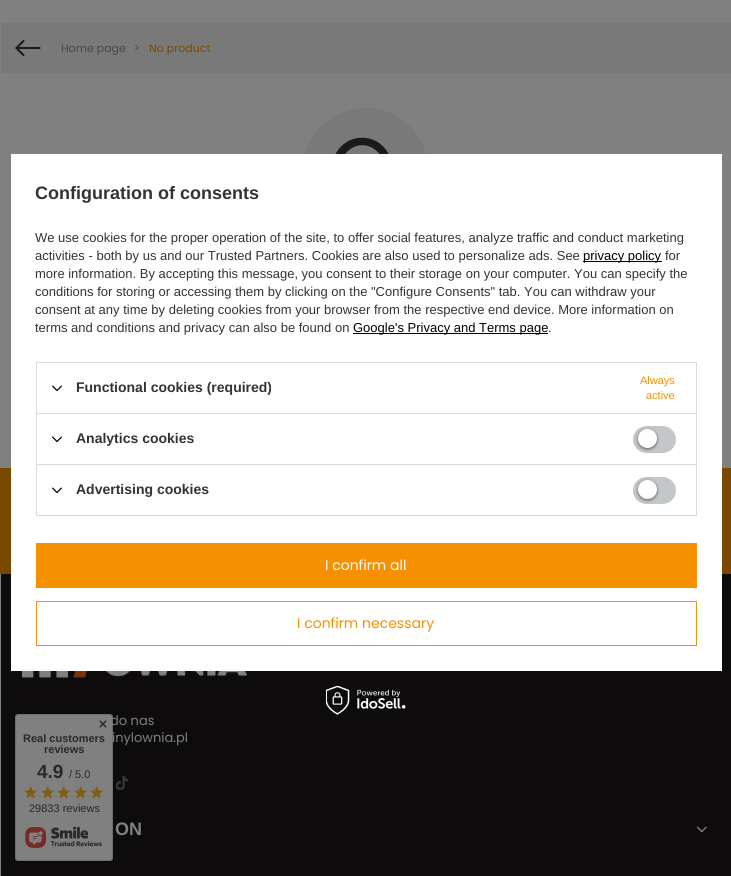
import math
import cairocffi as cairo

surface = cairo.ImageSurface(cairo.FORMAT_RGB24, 731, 876)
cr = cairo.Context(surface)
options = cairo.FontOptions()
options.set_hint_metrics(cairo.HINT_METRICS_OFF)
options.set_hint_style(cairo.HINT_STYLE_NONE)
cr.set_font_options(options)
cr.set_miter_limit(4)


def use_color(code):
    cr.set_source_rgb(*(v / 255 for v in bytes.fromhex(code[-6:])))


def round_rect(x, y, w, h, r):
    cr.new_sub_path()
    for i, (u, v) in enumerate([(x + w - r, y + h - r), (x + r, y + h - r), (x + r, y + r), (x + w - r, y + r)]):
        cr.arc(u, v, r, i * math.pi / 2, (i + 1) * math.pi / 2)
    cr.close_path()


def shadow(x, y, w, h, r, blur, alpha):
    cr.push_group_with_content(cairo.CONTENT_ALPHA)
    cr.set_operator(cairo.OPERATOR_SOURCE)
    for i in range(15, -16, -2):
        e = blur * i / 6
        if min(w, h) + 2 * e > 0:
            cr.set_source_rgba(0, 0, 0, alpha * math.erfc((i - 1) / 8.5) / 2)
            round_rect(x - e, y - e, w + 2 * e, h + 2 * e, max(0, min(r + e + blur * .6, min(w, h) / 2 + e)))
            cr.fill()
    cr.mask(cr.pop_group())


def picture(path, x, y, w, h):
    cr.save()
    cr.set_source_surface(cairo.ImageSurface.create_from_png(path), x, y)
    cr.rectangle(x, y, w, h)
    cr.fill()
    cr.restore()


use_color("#808080")
cr.paint()
use_color("#797979")
cr.rectangle(1, 23, 730, 50)
cr.fill()
picture("img1.png", 15, 40, 26, 17)
cr.select_font_face("Poppins")
cr.set_font_size(11)
use_color("#474747")
cr.move_to(61, 52)
cr.show_text("Home page")
picture("img2.png", 135, 44, 4, 7)
use_color("#7b4800")
cr.move_to(149, 52)
cr.show_text("No product")
use_color("#797979")
cr.new_path()
cr.arc(365.5, 170.5, 62.5, 0, 2 * math.pi)
cr.fill()
picture("img3.png", 335, 137, 54, 17)
use_color("#7b4800")
cr.rectangle(0, 468, 731, 106)
cr.fill()
use_color("#0e0b0c")
cr.rectangle(1, 574, 730, 302)
cr.fill()
use_color("#ffffff")
cr.rectangle(11, 154, 711, 517)
cr.fill()
cr.select_font_face("Liberation Sans", cairo.FONT_SLANT_NORMAL, cairo.FONT_WEIGHT_BOLD)
cr.set_font_size(18)
use_color("#333333")
cr.move_to(35, 199)
cr.show_text("Configuration of consents")
cr.select_font_face("Liberation Sans")
cr.set_font_size(13)
cr.move_to(35, 242)
cr.show_text("We use cookies for the proper operation of the site, to offer social features, analyze traffic and conduct marketing")
cr.move_to(35, 260)
cr.show_text("activities - both by us and our Trusted Partners. Cookies are also used to personalize ads. See")
use_color("#000000")
cr.rectangle(583, 261, 79, 1)
cr.fill()
cr.move_to(583, 260)
cr.show_text("privacy policy")
use_color("#333333")
cr.move_to(665, 260)
cr.show_text("for")
cr.move_to(35, 278)
cr.show_text("more information. By accepting this message, you consent to their storage on your computer. You can specify the")
cr.move_to(35, 296)
cr.show_text("conditions for storing or accessing them by clicking on the \"Configure Consents\" tab. You can withdraw your")
cr.move_to(35, 314)
cr.show_text("consent at any time by deleting cookies from your browser from the respective end device. More information on")
cr.move_to(35, 332)
cr.show_text("terms and conditions and privacy can also be found on")
use_color("#000000")
cr.rectangle(353, 333, 195, 1)
cr.fill()
cr.move_to(353, 332)
cr.show_text("Google's Privacy and Terms page")
use_color("#333333")
cr.move_to(548, 332)
cr.show_text(".")
use_color("#dbdbdb")
cr.rectangle(36, 362, 661, 1)
cr.fill()
cr.rectangle(696, 362, 1, 51)
cr.fill()
cr.rectangle(36, 362, 1, 51)
cr.fill()
picture("img4.png", 52, 385, 10, 7)
cr.select_font_face("Liberation Sans", cairo.FONT_SLANT_NORMAL, cairo.FONT_WEIGHT_BOLD)
cr.set_font_size(14)
use_color("#333333")
cr.move_to(76, 392)
cr.show_text("Functional cookies (required)")
cr.select_font_face("Liberation Sans")
cr.set_font_size(11)
use_color("#f59000")
cr.move_to(640, 384)
cr.show_text("Always")
cr.move_to(646, 399)
cr.show_text("active")
use_color("#dbdbdb")
cr.rectangle(36, 413, 661, 1)
cr.fill()
cr.rectangle(696, 413, 1, 51)
cr.fill()
cr.rectangle(36, 413, 1, 51)
cr.fill()
picture("img4.png", 52, 436, 10, 7)
cr.select_font_face("Liberation Sans", cairo.FONT_SLANT_NORMAL, cairo.FONT_WEIGHT_BOLD)
cr.set_font_size(14)
use_color("#333333")
cr.move_to(76, 443)
cr.show_text("Analytics cookies")
use_color("#c4c7c8")
round_rect(633, 426, 43, 27, 13.5)
cr.fill()
use_color("#000000")
shadow(638, 430, 19, 19, 9.5, 1.5, 0.56)
use_color("#ffffff")
cr.arc(647.5, 438.5, 9.5, 0, 2 * math.pi)
cr.fill()
cr.rectangle(36.5, 464.5, 660, 51)
use_color("#dbdbdb")
cr.set_line_width(1)
cr.stroke()
picture("img4.png", 52, 487, 10, 7)
use_color("#333333")
cr.move_to(76, 494)
cr.show_text("Advertising cookies")
use_color("#c4c7c8")
round_rect(633, 477, 43, 27, 13.5)
cr.fill()
use_color("#000000")
shadow(638, 481, 19, 19, 9.5, 1.5, 0.56)
use_color("#ffffff")
cr.arc(647.5, 489.5, 9.5, 0, 2 * math.pi)
cr.fill()
use_color("#f59000")
cr.rectangle(36, 543, 661, 45)
cr.fill()
cr.select_font_face("Poppins")
use_color("#ffffff")
cr.move_to(325, 570)
cr.show_text("I confirm all")
cr.rectangle(36.5, 601.5, 660, 44)
use_color("#f59000")
cr.stroke()
cr.move_to(297, 628)
cr.show_text("I confirm necessary")
picture("img5.png", 326, 686, 80, 29)
use_color("#808080")
round_rect(15.5, 714.5, 97, 146, 2.5)
cr.fill_preserve()
use_color("#6f6f6f")
cr.stroke()
picture("img6.png", 99, 720, 8, 8)
cr.select_font_face("Liberation Sans", cairo.FONT_SLANT_NORMAL, cairo.FONT_WEIGHT_BOLD)
cr.set_font_size(11)
use_color("#282828")
cr.move_to(23, 742)
cr.show_text("Real customers")
cr.move_to(44, 753)
cr.show_text("reviews")
cr.set_font_size(19)
cr.move_to(37, 778)
cr.show_text("4.9")
cr.select_font_face("Liberation Sans")
cr.set_font_size(11)
cr.move_to(69, 778)
cr.show_text("/ 5.0")
picture("img7.png", 24, 786, 14, 13)
picture("img8.png", 41, 786, 13, 13)
picture("img7.png", 57, 786, 14, 13)
picture("img8.png", 74, 786, 13, 13)
picture("img7.png", 90, 786, 14, 13)
cr.move_to(29, 812)
cr.show_text("29833 reviews")
picture("img9.png", 25, 826, 77, 22)
picture("img10.png", 21, 671, 226, 7)
cr.select_font_face("Poppins")
cr.set_font_size(13)
use_color("#808080")
cr.move_to(110, 725)
cr.show_text("do nas")
cr.move_to(112, 742)
cr.show_text("inylownia.pl")
picture("img11.png", 116, 776, 12, 14)
cr.select_font_face("Liberation Sans", cairo.FONT_SLANT_NORMAL, cairo.FONT_WEIGHT_BOLD)
cr.set_font_size(18)
cr.move_to(115, 835)
cr.show_text("ON")
picture("img12.png", 696, 826, 11, 7)
surface.write_to_png("result.png")
